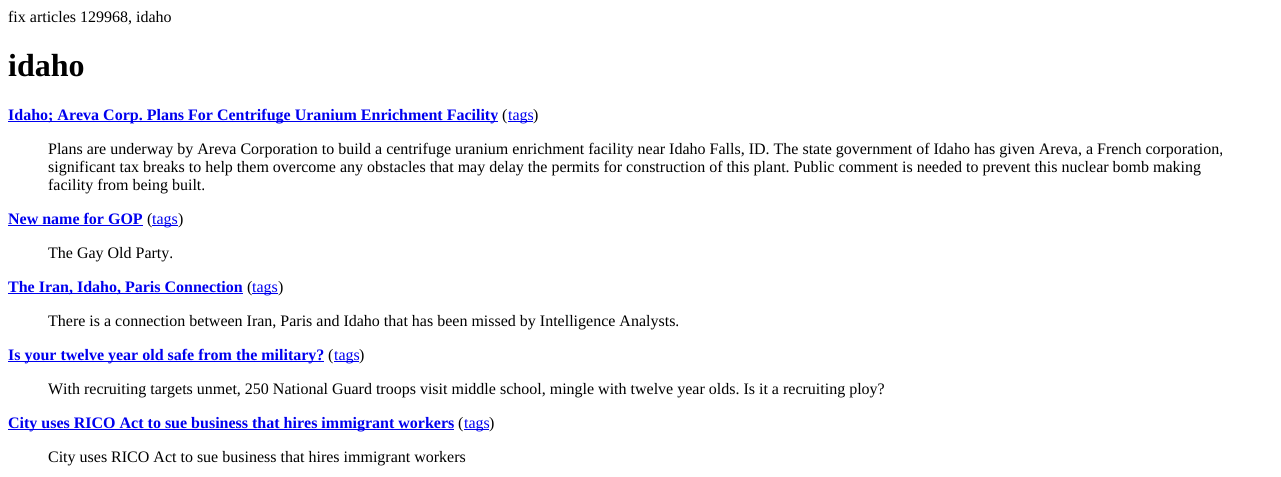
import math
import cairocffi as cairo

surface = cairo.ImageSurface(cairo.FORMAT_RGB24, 1281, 477)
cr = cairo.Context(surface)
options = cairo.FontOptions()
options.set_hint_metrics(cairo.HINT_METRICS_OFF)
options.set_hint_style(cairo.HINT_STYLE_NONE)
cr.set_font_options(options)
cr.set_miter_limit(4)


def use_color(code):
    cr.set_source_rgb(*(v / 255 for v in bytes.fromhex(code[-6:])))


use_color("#ffffff")
cr.paint()
cr.select_font_face("Liberation Serif")
cr.set_font_size(16)
use_color("#000000")
cr.move_to(8, 22)
cr.show_text("fix articles 129968, idaho")
cr.select_font_face("Liberation Serif", cairo.FONT_SLANT_NORMAL, cairo.FONT_WEIGHT_BOLD)
cr.set_font_size(32)
cr.move_to(8, 76)
cr.show_text("idaho")
use_color("#0000ee")
cr.rectangle(8, 121, 490, 1)
cr.fill()
cr.set_font_size(16)
cr.move_to(8, 120)
cr.show_text("Idaho; Areva Corp. Plans For Centrifuge Uranium Enrichment Facility")
cr.select_font_face("Liberation Serif")
use_color("#000000")
cr.move_to(502, 120)
cr.show_text("(")
use_color("#0000ee")
cr.rectangle(508, 121, 25, 1)
cr.fill()
cr.move_to(508, 120)
cr.show_text("tags")
use_color("#000000")
cr.move_to(533, 120)
cr.show_text(")")
cr.move_to(48, 154)
cr.show_text("Plans are underway by Areva Corporation to build a centrifuge uranium enrichment facility near Idaho Falls, ID. The state government of Idaho has given Areva, a French corporation,")
cr.move_to(48, 172)
cr.show_text("significant tax breaks to help them overcome any obstacles that may delay the permits for construction of this plant. Public comment is needed to prevent this nuclear bomb making")
cr.move_to(48, 190)
cr.show_text("facility from being built.")
cr.select_font_face("Liberation Serif", cairo.FONT_SLANT_NORMAL, cairo.FONT_WEIGHT_BOLD)
use_color("#0000ee")
cr.move_to(8, 224)
cr.show_text("New name for GOP")
cr.rectangle(8, 225, 135, 1)
cr.fill()
cr.select_font_face("Liberation Serif")
use_color("#000000")
cr.move_to(147, 224)
cr.show_text("(")
use_color("#0000ee")
cr.rectangle(152, 225, 26, 1)
cr.fill()
cr.move_to(152, 224)
cr.show_text("tags")
use_color("#000000")
cr.move_to(178, 224)
cr.show_text(")")
cr.move_to(48, 258)
cr.show_text("The Gay Old Party.")
use_color("#0000ee")
cr.rectangle(8, 293, 235, 1)
cr.fill()
cr.select_font_face("Liberation Serif", cairo.FONT_SLANT_NORMAL, cairo.FONT_WEIGHT_BOLD)
cr.move_to(8, 292)
cr.show_text("The Iran, Idaho, Paris Connection")
cr.select_font_face("Liberation Serif")
use_color("#000000")
cr.move_to(247, 292)
cr.show_text("(")
use_color("#0000ee")
cr.rectangle(252, 293, 26, 1)
cr.fill()
cr.move_to(252, 292)
cr.show_text("tags")
use_color("#000000")
cr.move_to(278, 292)
cr.show_text(")")
cr.move_to(48, 326)
cr.show_text("There is a connection between Iran, Paris and Idaho that has been missed by Intelligence Analysts.")
use_color("#0000ee")
cr.rectangle(8, 361, 316, 1)
cr.fill()
cr.select_font_face("Liberation Serif", cairo.FONT_SLANT_NORMAL, cairo.FONT_WEIGHT_BOLD)
cr.move_to(8, 360)
cr.show_text("Is your twelve year old safe from the military?")
cr.select_font_face("Liberation Serif")
use_color("#000000")
cr.move_to(328, 360)
cr.show_text("(")
use_color("#0000ee")
cr.rectangle(334, 361, 25, 1)
cr.fill()
cr.move_to(334, 360)
cr.show_text("tags")
use_color("#000000")
cr.move_to(359, 360)
cr.show_text(")")
cr.move_to(48, 394)
cr.show_text("With recruiting targets unmet, 250 National Guard troops visit middle school, mingle with twelve year olds. Is it a recruiting ploy?")
use_color("#0000ee")
cr.rectangle(8, 429, 446, 1)
cr.fill()
cr.select_font_face("Liberation Serif", cairo.FONT_SLANT_NORMAL, cairo.FONT_WEIGHT_BOLD)
cr.move_to(8, 428)
cr.show_text("City uses RICO Act to sue business that hires immigrant workers")
cr.select_font_face("Liberation Serif")
use_color("#000000")
cr.move_to(458, 428)
cr.show_text("(")
use_color("#0000ee")
cr.rectangle(464, 429, 25, 1)
cr.fill()
cr.move_to(464, 428)
cr.show_text("tags")
use_color("#000000")
cr.move_to(489, 428)
cr.show_text(")")
cr.move_to(48, 462)
cr.show_text("City uses RICO Act to sue business that hires immigrant workers")
surface.write_to_png("result.png")
